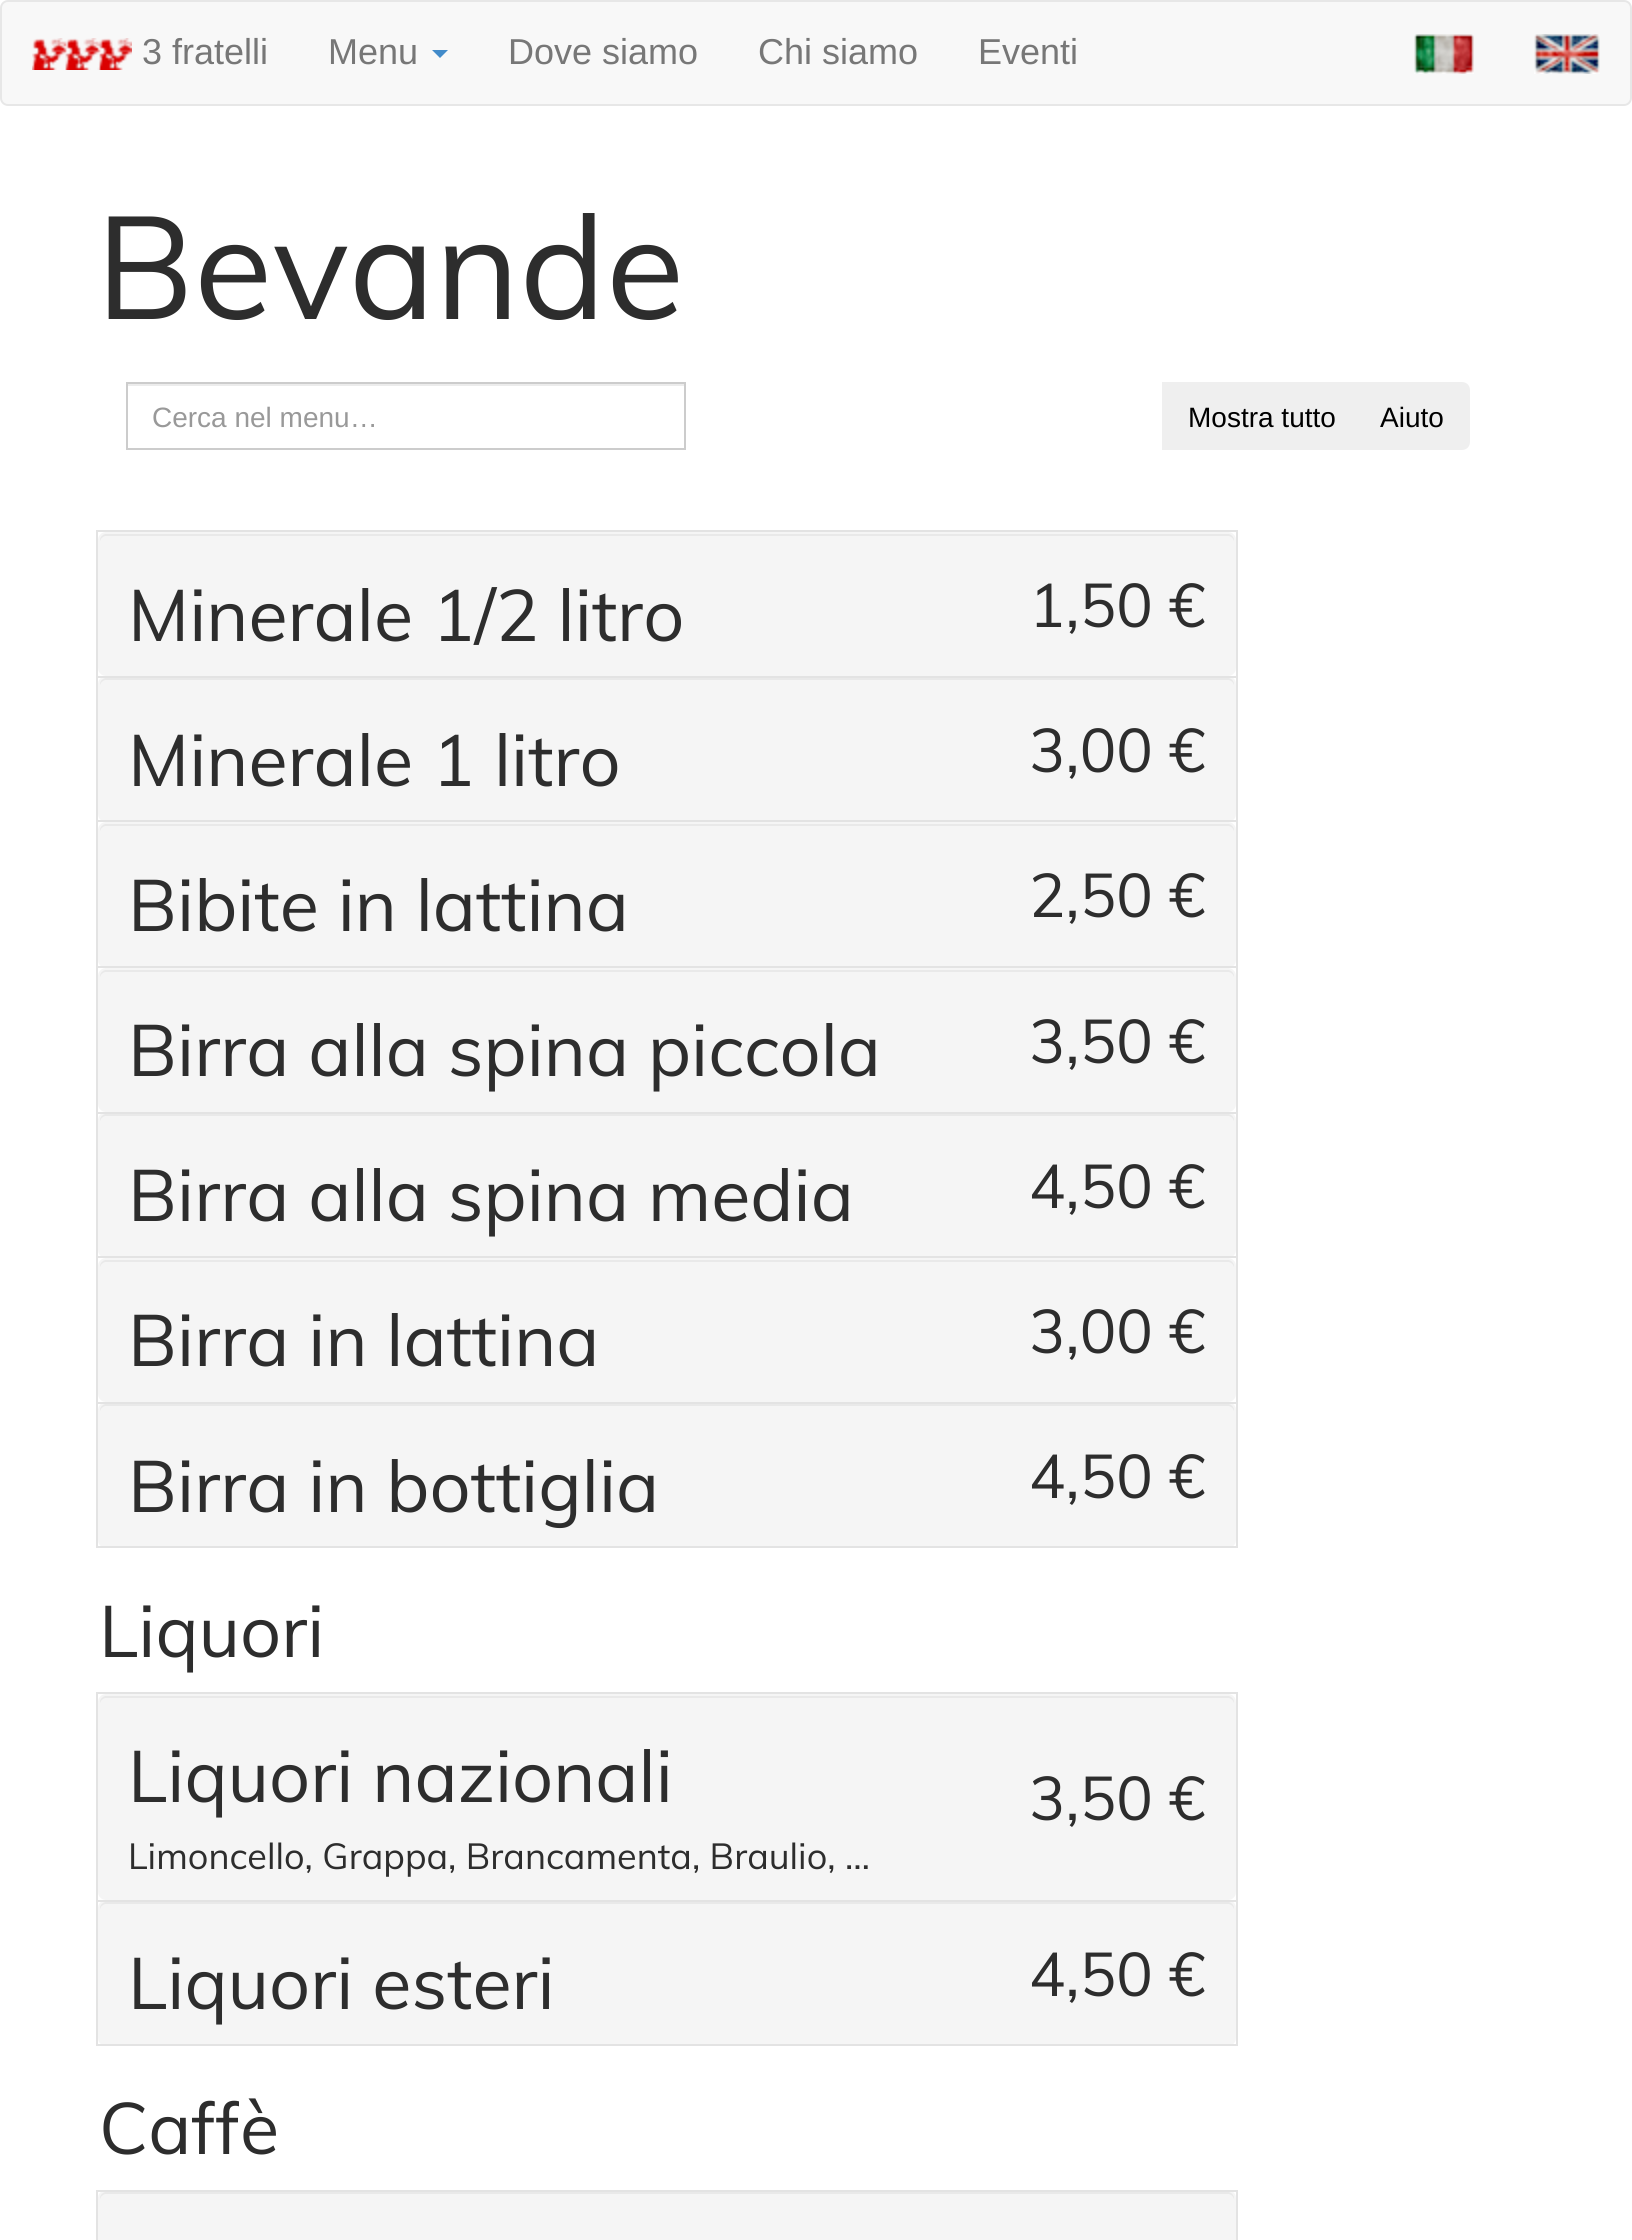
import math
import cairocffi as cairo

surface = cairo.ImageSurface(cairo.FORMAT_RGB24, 1632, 2240)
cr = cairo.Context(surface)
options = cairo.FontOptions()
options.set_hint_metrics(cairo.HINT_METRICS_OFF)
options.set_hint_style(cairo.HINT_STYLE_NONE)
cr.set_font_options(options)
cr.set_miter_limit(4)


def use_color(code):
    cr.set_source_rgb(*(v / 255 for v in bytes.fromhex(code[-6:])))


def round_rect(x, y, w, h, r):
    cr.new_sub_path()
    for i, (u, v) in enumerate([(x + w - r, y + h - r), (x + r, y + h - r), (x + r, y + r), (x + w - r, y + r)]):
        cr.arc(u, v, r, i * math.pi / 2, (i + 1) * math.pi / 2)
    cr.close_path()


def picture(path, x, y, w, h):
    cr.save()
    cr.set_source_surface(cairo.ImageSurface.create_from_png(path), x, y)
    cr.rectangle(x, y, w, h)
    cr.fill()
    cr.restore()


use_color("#ffffff")
cr.paint()
use_color("#f8f8f8")
round_rect(1, 1, 1630, 104, 7)
cr.fill_preserve()
use_color("#e7e7e7")
cr.stroke()
picture("img1.png", 32, 38, 100, 32)
cr.select_font_face("Liberation Sans")
cr.set_font_size(36)
use_color("#777777")
cr.move_to(142, 64)
cr.show_text("3 fratelli")
cr.move_to(328, 64)
cr.show_text("Menu")
use_color("#428bca")
cr.new_path()
cr.move_to(432, 50)
cr.line_to(448, 50)
cr.line_to(440, 58)
cr.close_path()
cr.fill()
use_color("#777777")
cr.move_to(508, 64)
cr.show_text("Dove siamo")
cr.move_to(758, 64)
cr.show_text("Chi siamo")
cr.move_to(978, 64)
cr.show_text("Eventi")
picture("img2.png", 1414, 34, 60, 40)
picture("img3.png", 1534, 34, 66, 40)
cr.select_font_face("Muli")
cr.set_font_size(144)
use_color("#2d2d2d")
cr.move_to(96, 319)
cr.show_text("Bevande")
use_color("#ececec")
cr.rectangle(128, 384, 556, 2)
cr.fill()
cr.rectangle(127, 383, 558, 66)
use_color("#cccccc")
cr.stroke()
cr.select_font_face("Liberation Sans")
cr.set_font_size(28)
use_color("#999999")
cr.move_to(152, 427)
cr.show_text("Cerca nel menu…")
use_color("#efefef")
cr.rectangle(1162, 382, 192, 68)
cr.fill()
use_color("#000000")
cr.move_to(1188, 427)
cr.show_text("Mostra tutto")
use_color("#efefef")
cr.new_path()
cr.move_to(1354, 382)
cr.line_to(1462, 382)
cr.curve_to(1466.5, 382, 1470, 385.5, 1470, 390)
cr.line_to(1470, 442)
cr.curve_to(1470, 446.5, 1466.5, 450, 1462, 450)
cr.line_to(1354, 450)
cr.close_path()
cr.fill()
use_color("#000000")
cr.move_to(1380, 427)
cr.show_text("Aiuto")
use_color("#f5f5f5")
round_rect(98, 532, 1138, 144, 8)
cr.fill()
use_color("#e9e9e9")
cr.new_path()
cr.move_to(106, 536)
cr.line_to(1228, 536)
cr.curve_to(1231, 536, 1234, 539, 1234, 542)
cr.line_to(1234, 540)
cr.curve_to(1234, 537, 1231, 534, 1228, 534)
cr.line_to(106, 534)
cr.curve_to(103, 534, 100, 537, 100, 540)
cr.line_to(100, 542)
cr.curve_to(100, 539, 103, 536, 106, 536)
cr.close_path()
cr.fill()
use_color("#e3e3e3")
cr.rectangle(96, 530, 1142, 2)
cr.fill()
use_color("#f5f5f5")
round_rect(98, 676, 1138, 146, 8)
cr.fill()
use_color("#e3e3e3")
cr.rectangle(96, 676, 1142, 2)
cr.fill()
cr.rectangle(96, 820, 1142, 2)
cr.fill()
use_color("#f5f5f5")
round_rect(98, 822, 1138, 146, 8)
cr.fill()
use_color("#e3e3e3")
cr.rectangle(96, 966, 1142, 2)
cr.fill()
use_color("#f5f5f5")
round_rect(98, 1112, 1138, 146, 8)
cr.fill()
use_color("#e3e3e3")
cr.rectangle(96, 1112, 1142, 2)
cr.fill()
cr.rectangle(96, 1256, 1142, 2)
cr.fill()
use_color("#f5f5f5")
round_rect(98, 1402, 1138, 146, 8)
cr.fill()
use_color("#e3e3e3")
cr.rectangle(96, 1402, 1142, 2)
cr.fill()
cr.rectangle(1236, 1402, 2, 146)
cr.fill()
cr.rectangle(1236, 1256, 2, 148)
cr.fill()
cr.rectangle(1236, 1112, 2, 146)
cr.fill()
cr.rectangle(1236, 966, 2, 148)
cr.fill()
cr.rectangle(1236, 820, 2, 148)
cr.fill()
cr.rectangle(1236, 676, 2, 146)
cr.fill()
cr.rectangle(1236, 530, 2, 148)
cr.fill()
cr.rectangle(96, 1546, 1142, 2)
cr.fill()
cr.rectangle(96, 1402, 2, 146)
cr.fill()
cr.rectangle(96, 1256, 2, 148)
cr.fill()
cr.rectangle(96, 1112, 2, 146)
cr.fill()
cr.rectangle(96, 966, 2, 148)
cr.fill()
cr.rectangle(96, 820, 2, 148)
cr.fill()
cr.rectangle(96, 676, 2, 146)
cr.fill()
cr.rectangle(96, 530, 2, 148)
cr.fill()
cr.select_font_face("Muli")
cr.set_font_size(72)
use_color("#2d2d2d")
cr.move_to(128, 641)
cr.show_text("Minerale 1/2 litro")
cr.set_font_size(61)
cr.move_to(1029, 627)
cr.show_text("1,50 €")
use_color("#e9e9e9")
cr.new_path()
cr.move_to(106, 680)
cr.line_to(1228, 680)
cr.curve_to(1231, 680, 1234, 683, 1234, 686)
cr.line_to(1234, 684)
cr.curve_to(1234, 681, 1231, 678, 1228, 678)
cr.line_to(106, 678)
cr.curve_to(103, 678, 100, 681, 100, 684)
cr.line_to(100, 686)
cr.curve_to(100, 683, 103, 680, 106, 680)
cr.close_path()
cr.fill()
cr.set_font_size(72)
use_color("#2d2d2d")
cr.move_to(128, 786)
cr.show_text("Minerale 1 litro")
cr.set_font_size(61)
cr.move_to(1029, 772)
cr.show_text("3,00 €")
use_color("#e9e9e9")
cr.new_path()
cr.move_to(106, 826)
cr.line_to(1228, 826)
cr.curve_to(1231, 826, 1234, 829, 1234, 832)
cr.line_to(1234, 830)
cr.curve_to(1234, 827, 1231, 824, 1228, 824)
cr.line_to(106, 824)
cr.curve_to(103, 824, 100, 827, 100, 830)
cr.line_to(100, 832)
cr.curve_to(100, 829, 103, 826, 106, 826)
cr.close_path()
cr.fill()
cr.set_font_size(72)
use_color("#2d2d2d")
cr.move_to(128, 931)
cr.show_text("Bibite in lattina")
cr.set_font_size(61)
cr.move_to(1029, 917)
cr.show_text("2,50 €")
use_color("#f5f5f5")
round_rect(98, 968, 1138, 144, 8)
cr.fill()
use_color("#e9e9e9")
cr.new_path()
cr.move_to(106, 972)
cr.line_to(1228, 972)
cr.curve_to(1231, 972, 1234, 975, 1234, 978)
cr.line_to(1234, 976)
cr.curve_to(1234, 973, 1231, 970, 1228, 970)
cr.line_to(106, 970)
cr.curve_to(103, 970, 100, 973, 100, 976)
cr.line_to(100, 978)
cr.curve_to(100, 975, 103, 972, 106, 972)
cr.close_path()
cr.fill()
cr.set_font_size(72)
use_color("#2d2d2d")
cr.move_to(128, 1076)
cr.show_text("Birra alla spina piccola")
cr.set_font_size(61)
cr.move_to(1029, 1063)
cr.show_text("3,50 €")
use_color("#e9e9e9")
cr.new_path()
cr.move_to(106, 1116)
cr.line_to(1228, 1116)
cr.curve_to(1231, 1116, 1234, 1119, 1234, 1122)
cr.line_to(1234, 1120)
cr.curve_to(1234, 1117, 1231, 1114, 1228, 1114)
cr.line_to(106, 1114)
cr.curve_to(103, 1114, 100, 1117, 100, 1120)
cr.line_to(100, 1122)
cr.curve_to(100, 1119, 103, 1116, 106, 1116)
cr.close_path()
cr.fill()
cr.set_font_size(72)
use_color("#2d2d2d")
cr.move_to(128, 1221)
cr.show_text("Birra alla spina media")
cr.set_font_size(61)
cr.move_to(1029, 1208)
cr.show_text("4,50 €")
use_color("#f5f5f5")
round_rect(98, 1258, 1138, 144, 8)
cr.fill()
use_color("#e9e9e9")
cr.new_path()
cr.move_to(106, 1262)
cr.line_to(1228, 1262)
cr.curve_to(1231, 1262, 1234, 1265, 1234, 1268)
cr.line_to(1234, 1266)
cr.curve_to(1234, 1263, 1231, 1260, 1228, 1260)
cr.line_to(106, 1260)
cr.curve_to(103, 1260, 100, 1263, 100, 1266)
cr.line_to(100, 1268)
cr.curve_to(100, 1265, 103, 1262, 106, 1262)
cr.close_path()
cr.fill()
cr.set_font_size(72)
use_color("#2d2d2d")
cr.move_to(128, 1366)
cr.show_text("Birra in lattina")
cr.set_font_size(61)
cr.move_to(1029, 1353)
cr.show_text("3,00 €")
use_color("#e9e9e9")
cr.new_path()
cr.move_to(106, 1406)
cr.line_to(1228, 1406)
cr.curve_to(1231, 1406, 1234, 1409, 1234, 1412)
cr.line_to(1234, 1410)
cr.curve_to(1234, 1407, 1231, 1404, 1228, 1404)
cr.line_to(106, 1404)
cr.curve_to(103, 1404, 100, 1407, 100, 1410)
cr.line_to(100, 1412)
cr.curve_to(100, 1409, 103, 1406, 106, 1406)
cr.close_path()
cr.fill()
cr.set_font_size(72)
use_color("#2d2d2d")
cr.move_to(128, 1512)
cr.show_text("Birra in bottiglia")
cr.set_font_size(61)
cr.move_to(1029, 1498)
cr.show_text("4,50 €")
cr.set_font_size(72)
cr.move_to(99, 1657)
cr.show_text("Liquori")
use_color("#f5f5f5")
round_rect(98, 1694, 1138, 206, 8)
cr.fill()
use_color("#e9e9e9")
cr.new_path()
cr.move_to(106, 1698)
cr.line_to(1228, 1698)
cr.curve_to(1231, 1698, 1234, 1701, 1234, 1704)
cr.line_to(1234, 1702)
cr.curve_to(1234, 1699, 1231, 1696, 1228, 1696)
cr.line_to(106, 1696)
cr.curve_to(103, 1696, 100, 1699, 100, 1702)
cr.line_to(100, 1704)
cr.curve_to(100, 1701, 103, 1698, 106, 1698)
cr.close_path()
cr.fill()
use_color("#e3e3e3")
cr.rectangle(96, 1692, 1142, 2)
cr.fill()
use_color("#f5f5f5")
round_rect(98, 1900, 1138, 146, 8)
cr.fill()
use_color("#e3e3e3")
cr.rectangle(96, 1900, 1142, 2)
cr.fill()
cr.rectangle(1236, 1900, 2, 146)
cr.fill()
cr.rectangle(1236, 1692, 2, 210)
cr.fill()
cr.rectangle(96, 2044, 1142, 2)
cr.fill()
cr.rectangle(96, 1900, 2, 146)
cr.fill()
cr.rectangle(96, 1692, 2, 210)
cr.fill()
use_color("#2d2d2d")
cr.move_to(128, 1802)
cr.show_text("Liquori nazionali")
cr.set_font_size(36)
cr.move_to(128, 1869)
cr.show_text("Limoncello, Grappa, Brancamenta, Braulio, …")
cr.set_font_size(61)
cr.move_to(1029, 1820)
cr.show_text("3,50 €")
use_color("#e9e9e9")
cr.new_path()
cr.move_to(106, 1904)
cr.line_to(1228, 1904)
cr.curve_to(1231, 1904, 1234, 1907, 1234, 1910)
cr.line_to(1234, 1908)
cr.curve_to(1234, 1905, 1231, 1902, 1228, 1902)
cr.line_to(106, 1902)
cr.curve_to(103, 1902, 100, 1905, 100, 1908)
cr.line_to(100, 1910)
cr.curve_to(100, 1907, 103, 1904, 106, 1904)
cr.close_path()
cr.fill()
cr.set_font_size(72)
use_color("#2d2d2d")
cr.move_to(128, 2009)
cr.show_text("Liquori esteri")
cr.set_font_size(61)
cr.move_to(1029, 1996)
cr.show_text("4,50 €")
cr.set_font_size(72)
cr.move_to(99, 2154)
cr.show_text("Caffè")
use_color("#f5f5f5")
round_rect(98, 2190, 1138, 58, 8)
cr.fill()
use_color("#e9e9e9")
cr.new_path()
cr.move_to(106, 2194)
cr.line_to(1228, 2194)
cr.curve_to(1231, 2194, 1234, 2197, 1234, 2200)
cr.line_to(1234, 2198)
cr.curve_to(1234, 2195, 1231, 2192, 1228, 2192)
cr.line_to(106, 2192)
cr.curve_to(103, 2192, 100, 2195, 100, 2198)
cr.line_to(100, 2200)
cr.curve_to(100, 2197, 103, 2194, 106, 2194)
cr.close_path()
cr.fill()
use_color("#e3e3e3")
cr.rectangle(96, 2190, 1142, 2)
cr.fill()
cr.rectangle(1236, 2190, 2, 50)
cr.fill()
cr.rectangle(96, 2190, 2, 50)
cr.fill()
surface.write_to_png("result.png")
